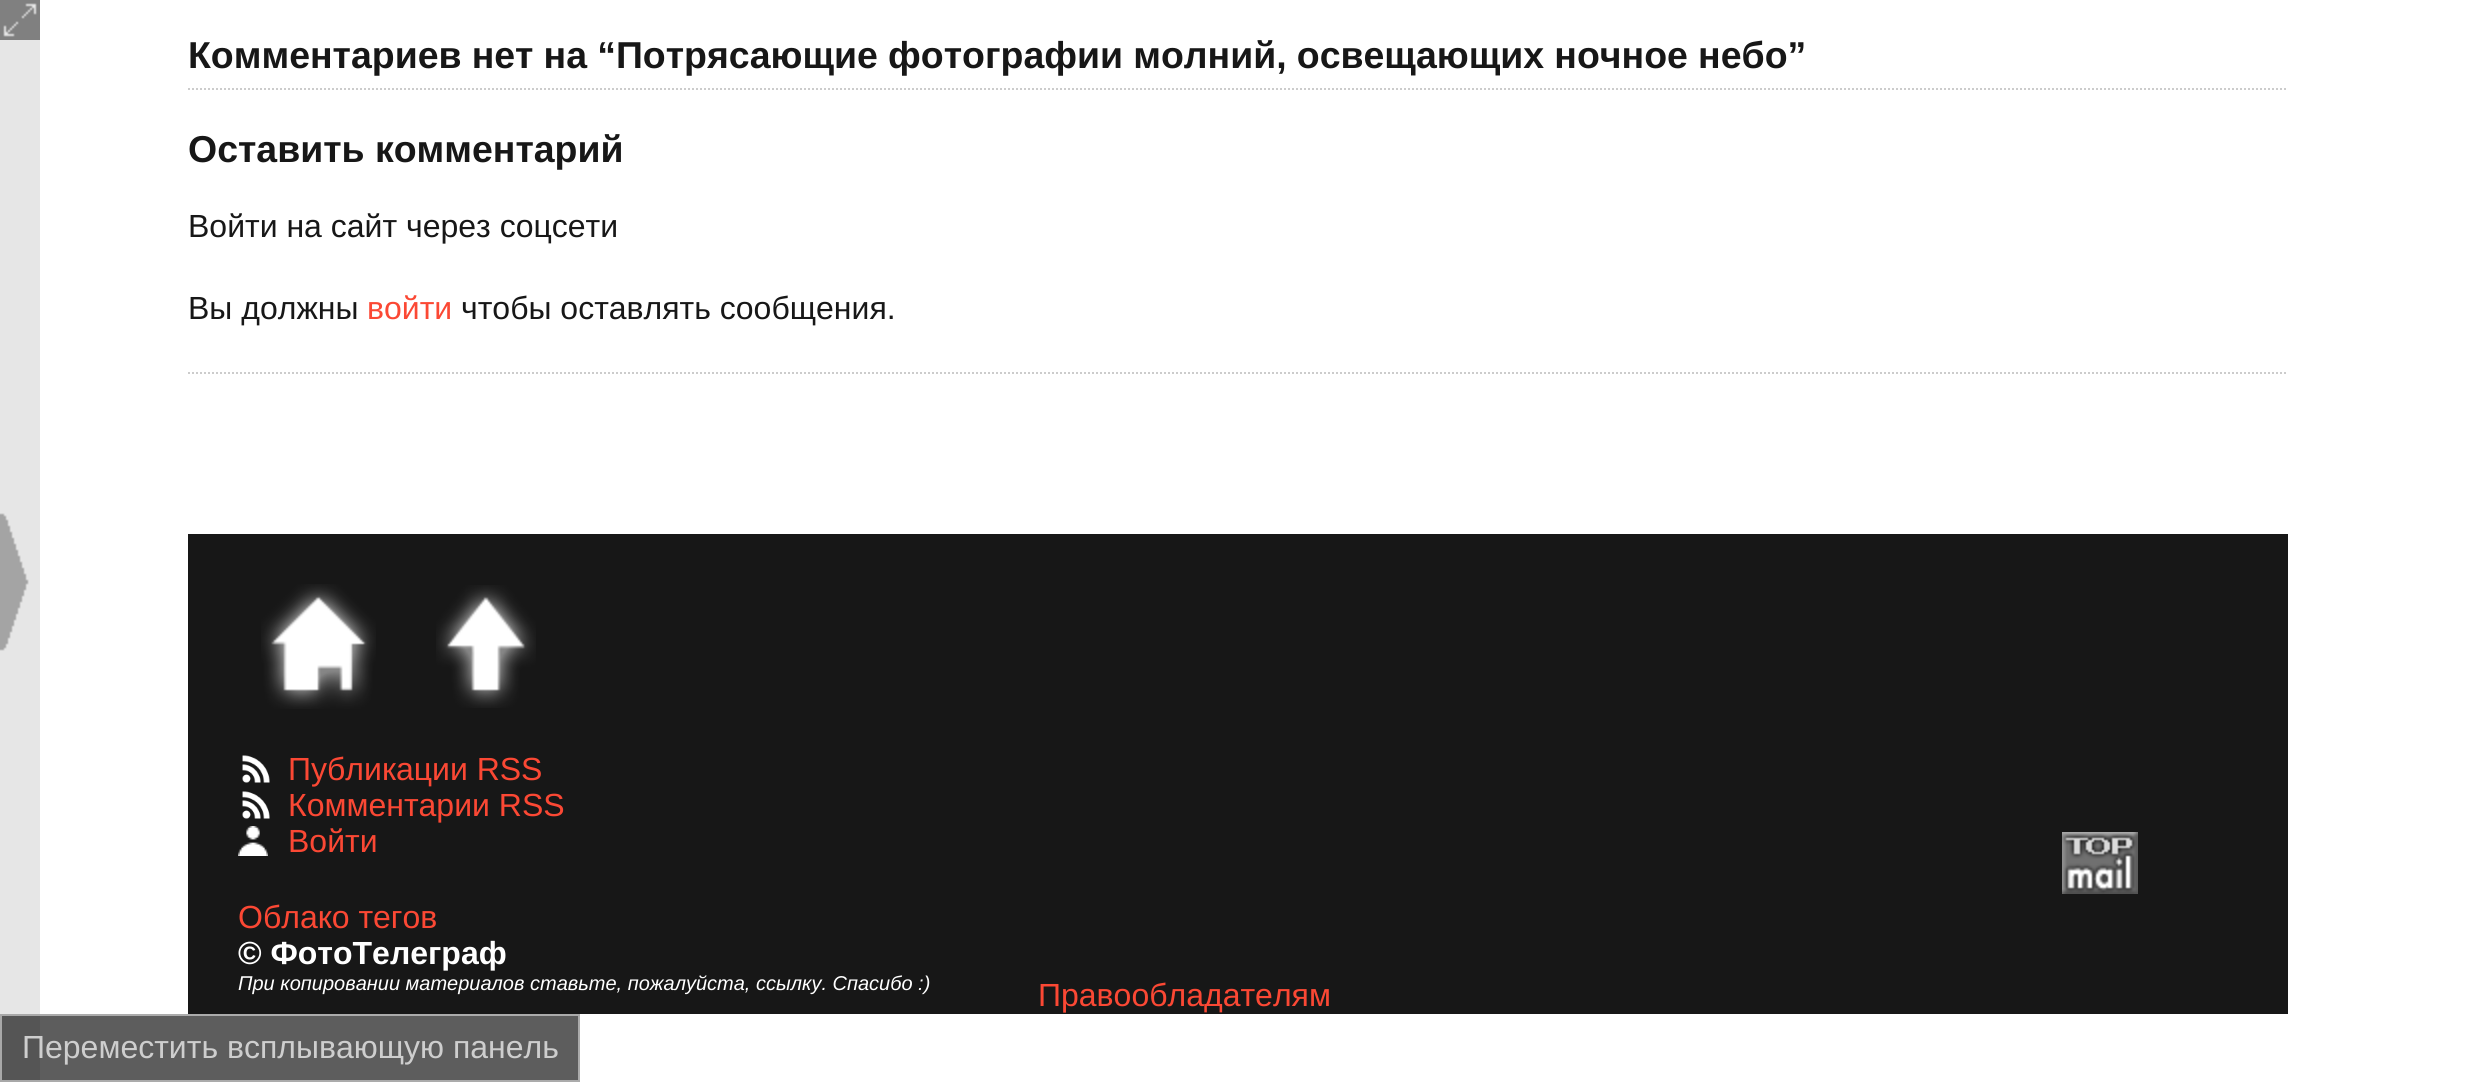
import math
import cairocffi as cairo

surface = cairo.ImageSurface(cairo.FORMAT_RGB24, 2476, 1082)
cr = cairo.Context(surface)
options = cairo.FontOptions()
options.set_hint_metrics(cairo.HINT_METRICS_OFF)
options.set_hint_style(cairo.HINT_STYLE_NONE)
cr.set_font_options(options)
cr.set_miter_limit(4)


def use_color(code):
    cr.set_source_rgb(*(v / 255 for v in bytes.fromhex(code[-6:])))


def spaced_text(x, y, s, letter, word):
    cr.move_to(x, y)
    for ch in s:
        cr.show_text(ch)
        cr.rel_move_to(letter + word * (ch == ' '), 0)


def picture(path, x, y, w, h):
    cr.save()
    cr.set_source_surface(cairo.ImageSurface.create_from_png(path), x, y)
    cr.rectangle(x, y, w, h)
    cr.fill()
    cr.restore()


use_color("#ffffff")
cr.paint()
use_color("#5d5d5d")
cr.rectangle(40, 1014, 540, 68)
cr.fill()
use_color("#808080")
cr.rectangle(0, 0, 40, 40)
cr.fill()
picture("img1.png", 3, 3, 34, 34)
use_color("#e6e6e6")
cr.rectangle(0, 40, 40, 974)
cr.fill()
use_color("#555555")
cr.rectangle(0, 1014, 40, 68)
cr.fill()
picture("img2.png", 0, 513, 29, 138)
cr.new_path()
cr.move_to(188, 89)
cr.line_to(2288, 89)
use_color("#cccccc")
cr.set_dash([2, 2])
cr.stroke()
cr.select_font_face("Liberation Sans", cairo.FONT_SLANT_NORMAL, cairo.FONT_WEIGHT_BOLD)
cr.set_font_size(37.45)
use_color("#171717")
spaced_text(188, 68, "Комментариев нет на “Потрясающие фотографии молний, освещающих ночное небо”", 0, -0.25)
cr.new_path()
cr.move_to(188, 373)
cr.line_to(2288, 373)
use_color("#cccccc")
cr.stroke()
use_color("#171717")
cr.move_to(188, 162)
cr.show_text("Оставить комментарий")
cr.select_font_face("Liberation Sans")
cr.set_font_size(32)
cr.move_to(188, 237)
cr.show_text("Войти на сайт через соцсети")
cr.move_to(188, 319)
cr.show_text("Вы должны")
use_color("#fb4834")
cr.move_to(367, 319)
cr.show_text("войти")
use_color("#171717")
cr.move_to(461, 319)
cr.show_text("чтобы оставлять сообщения.")
cr.rectangle(188, 534, 2100, 480)
cr.fill()
picture("img3.png", 261, 584, 115, 125)
picture("img4.png", 436, 585, 100, 123)
picture("img5.png", 242, 755, 28, 28)
use_color("#fb4834")
cr.move_to(288, 780)
cr.show_text("Публикации RSS")
picture("img5.png", 242, 791, 28, 28)
cr.move_to(288, 816)
cr.show_text("Комментарии RSS")
picture("img6.png", 238, 826, 30, 30)
cr.move_to(288, 852)
cr.show_text("Войти")
picture("img7.png", 2062, 832, 76, 62)
cr.move_to(238, 928)
cr.show_text("Облако тегов")
cr.select_font_face("Liberation Sans", cairo.FONT_SLANT_NORMAL, cairo.FONT_WEIGHT_BOLD)
use_color("#ffffff")
cr.move_to(238, 964)
cr.show_text("© ФотоТелеграф")
cr.select_font_face("Liberation Sans", cairo.FONT_SLANT_ITALIC)
cr.set_font_size(20)
cr.move_to(238, 990)
cr.show_text("При копировании материалов ставьте, пожалуйста, ссылку. Спасибо :)")
cr.select_font_face("Liberation Sans")
cr.set_font_size(32)
use_color("#fb4834")
cr.move_to(1038, 1006)
cr.show_text("Правообладателям")
cr.rectangle(1, 1015, 578, 66)
cr.set_source_rgba(0.8, 0.8, 0.8, 0.7)
cr.set_dash([])
cr.stroke()
use_color("#cecece")
cr.move_to(22, 1058)
cr.show_text("Переместить всплывающую панель")
surface.write_to_png("result.png")
